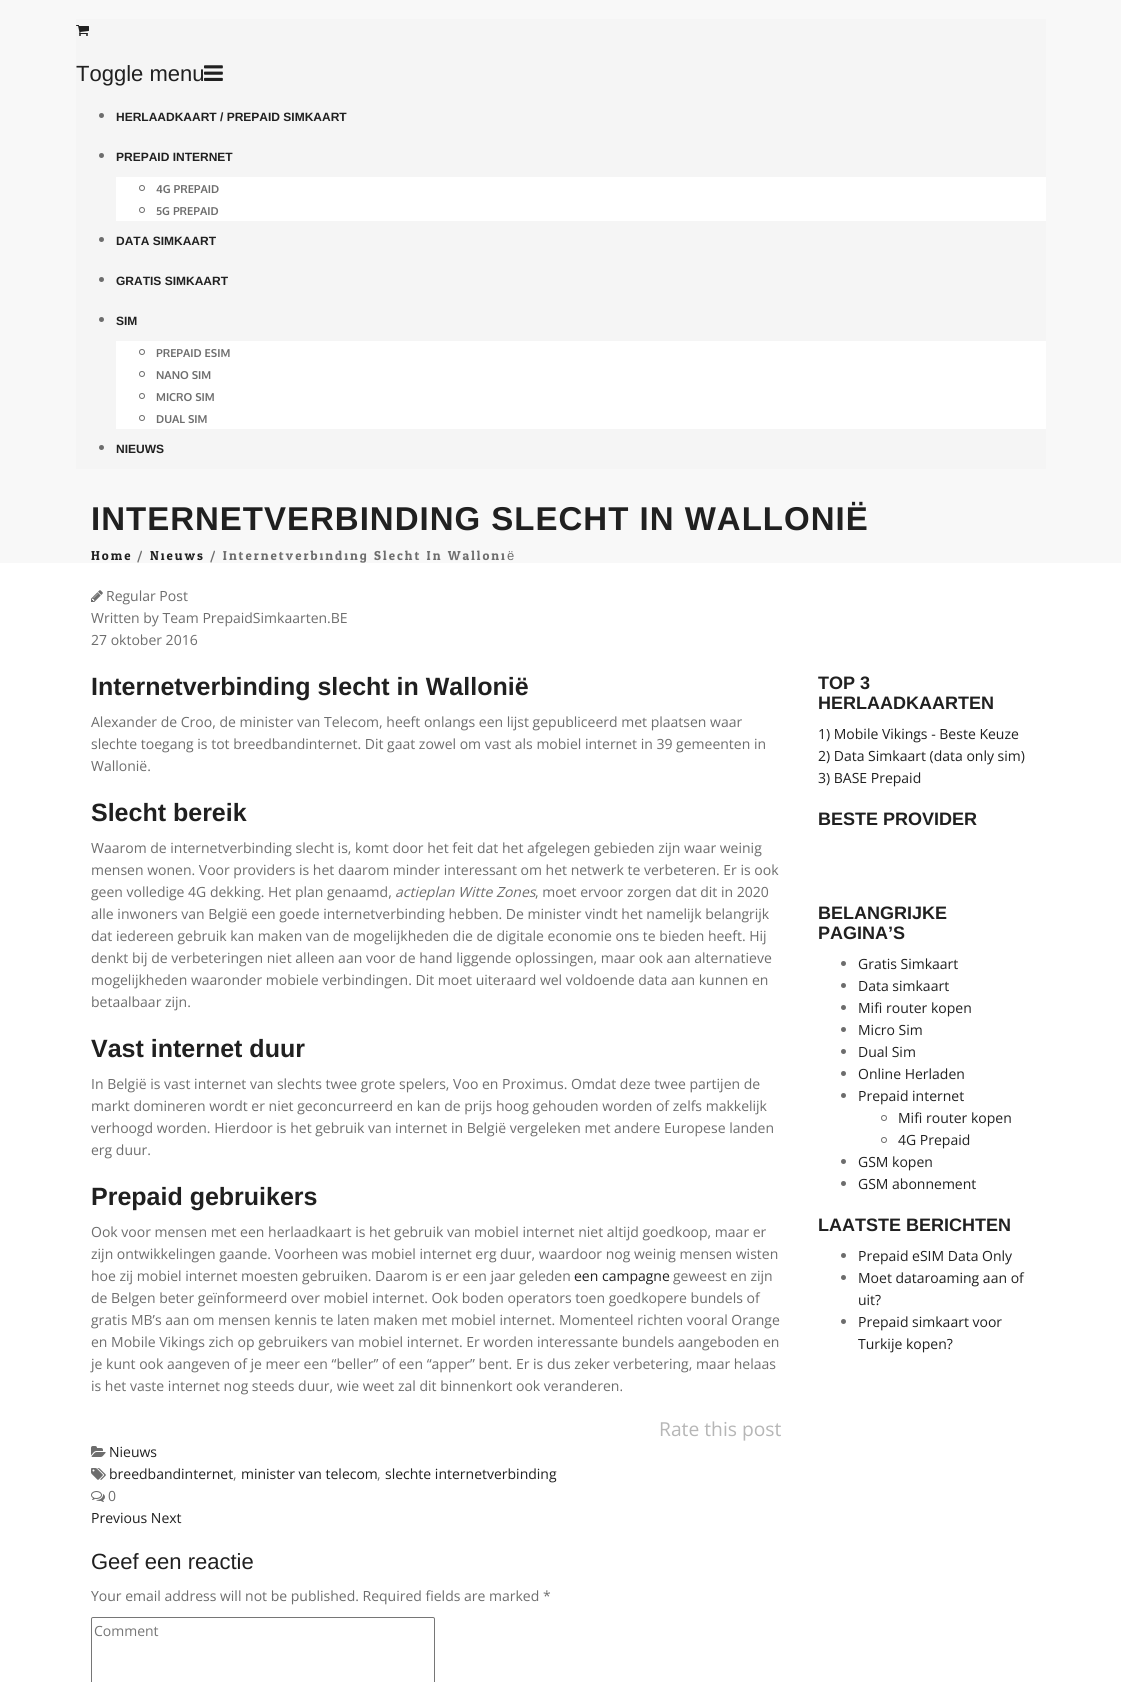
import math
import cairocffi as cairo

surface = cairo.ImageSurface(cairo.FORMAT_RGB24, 1121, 1682)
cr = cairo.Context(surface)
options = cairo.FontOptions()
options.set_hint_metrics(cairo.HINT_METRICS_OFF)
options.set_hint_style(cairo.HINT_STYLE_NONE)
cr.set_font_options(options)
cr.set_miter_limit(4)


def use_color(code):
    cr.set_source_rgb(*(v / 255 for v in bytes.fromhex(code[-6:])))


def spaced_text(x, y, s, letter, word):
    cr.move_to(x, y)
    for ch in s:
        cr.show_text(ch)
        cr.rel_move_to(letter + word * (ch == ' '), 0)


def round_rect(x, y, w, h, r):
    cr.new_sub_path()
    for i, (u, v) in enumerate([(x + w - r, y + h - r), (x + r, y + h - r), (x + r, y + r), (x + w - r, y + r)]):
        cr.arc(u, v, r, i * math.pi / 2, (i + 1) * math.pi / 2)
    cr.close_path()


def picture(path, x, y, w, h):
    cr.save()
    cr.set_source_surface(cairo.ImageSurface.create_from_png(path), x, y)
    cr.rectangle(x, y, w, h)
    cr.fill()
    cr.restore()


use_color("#f8f8f8")
cr.paint()
use_color("#f5f5f5")
cr.rectangle(76, 19, 970, 450)
cr.fill()
picture("img1.png", 76, 25, 13, 11)
cr.select_font_face("Arimo")
cr.set_font_size(22)
use_color("#202020")
cr.move_to(76, 81)
cr.show_text("Toggle menu")
picture("img2.png", 204, 65, 19, 16)
use_color("#6d6d6d")
cr.arc(101.5, 115.5, 2.5, 0, 2 * math.pi)
cr.fill()
cr.select_font_face("Arimo", cairo.FONT_SLANT_NORMAL, cairo.FONT_WEIGHT_BOLD)
cr.set_font_size(12)
use_color("#202020")
cr.move_to(116, 121)
cr.show_text("HERLAADKAART / PREPAID SIMKAART")
use_color("#6d6d6d")
cr.new_path()
cr.arc(101.5, 155.5, 2.5, 0, 2 * math.pi)
cr.fill()
use_color("#202020")
cr.move_to(116, 161)
cr.show_text("PREPAID INTERNET")
use_color("#ffffff")
cr.rectangle(116, 177, 930, 44)
cr.fill()
cr.arc(142, 188, 2.5, 0, 2 * math.pi)
use_color("#6d6d6d")
cr.set_line_width(1)
cr.stroke()
cr.select_font_face("Oxygen", cairo.FONT_SLANT_NORMAL, cairo.FONT_WEIGHT_BOLD)
cr.set_font_size(11)
cr.move_to(156, 193)
cr.show_text("4G PREPAID")
cr.new_path()
cr.arc(142, 210, 2.5, 0, 2 * math.pi)
cr.stroke()
cr.move_to(156, 215)
cr.show_text("5G PREPAID")
cr.new_path()
cr.arc(101.5, 239.5, 2.5, 0, 2 * math.pi)
cr.fill()
cr.select_font_face("Arimo", cairo.FONT_SLANT_NORMAL, cairo.FONT_WEIGHT_BOLD)
cr.set_font_size(12)
use_color("#202020")
cr.move_to(116, 245)
cr.show_text("DATA SIMKAART")
use_color("#6d6d6d")
cr.new_path()
cr.arc(101.5, 279.5, 2.5, 0, 2 * math.pi)
cr.fill()
use_color("#202020")
cr.move_to(116, 285)
cr.show_text("GRATIS SIMKAART")
use_color("#6d6d6d")
cr.new_path()
cr.arc(101.5, 319.5, 2.5, 0, 2 * math.pi)
cr.fill()
use_color("#202020")
cr.move_to(116, 325)
cr.show_text("SIM")
use_color("#ffffff")
cr.rectangle(116, 341, 930, 88)
cr.fill()
cr.arc(142, 352, 2.5, 0, 2 * math.pi)
use_color("#6d6d6d")
cr.stroke()
cr.select_font_face("Oxygen", cairo.FONT_SLANT_NORMAL, cairo.FONT_WEIGHT_BOLD)
cr.set_font_size(11)
cr.move_to(156, 357)
cr.show_text("PREPAID ESIM")
cr.new_path()
cr.arc(142, 374, 2.5, 0, 2 * math.pi)
cr.stroke()
cr.move_to(156, 379)
cr.show_text("NANO SIM")
cr.new_path()
cr.arc(142, 396, 2.5, 0, 2 * math.pi)
cr.stroke()
cr.move_to(156, 401)
cr.show_text("MICRO SIM")
cr.new_path()
cr.arc(142, 418, 2.5, 0, 2 * math.pi)
cr.stroke()
cr.move_to(156, 423)
cr.show_text("DUAL SIM")
cr.new_path()
cr.arc(101.5, 447.5, 2.5, 0, 2 * math.pi)
cr.fill()
cr.select_font_face("Arimo", cairo.FONT_SLANT_NORMAL, cairo.FONT_WEIGHT_BOLD)
cr.set_font_size(12)
use_color("#202020")
cr.move_to(116, 453)
cr.show_text("NIEUWS")
cr.set_font_size(33)
spaced_text(91, 530, "INTERNETVERBINDING SLECHT IN WALLONIË", 1, 0)
cr.select_font_face("Odor Mean Chey")
cr.set_font_size(13)
spaced_text(91, 560, "Home", 2, 0)
use_color("#6d6d6d")
spaced_text(137, 560, "/", 2, 0)
use_color("#202020")
spaced_text(150, 560, "Nieuws", 2, 0)
use_color("#6d6d6d")
spaced_text(210, 560, "/ Internetverbinding Slecht In Walloni", 2, 0)
cr.select_font_face("Liberation Sans")
spaced_text(507, 560, "ë", 2, 0)
use_color("#ffffff")
cr.rectangle(0, 563, 1121, 1119)
cr.fill()
picture("img3.png", 91, 590, 12, 12)
cr.select_font_face("Open Sans")
cr.set_font_size(14)
use_color("#6d6d6d")
cr.move_to(106, 601)
cr.show_text("Regular Post")
cr.move_to(91, 623)
cr.show_text("Written by Team PrepaidSimkaarten.BE")
cr.move_to(91, 645)
cr.show_text("27 oktober 2016")
cr.select_font_face("Arimo", cairo.FONT_SLANT_NORMAL, cairo.FONT_WEIGHT_BOLD)
cr.set_font_size(25)
use_color("#202020")
cr.move_to(91, 695)
cr.show_text("Internetverbinding slecht in Wallonië")
cr.select_font_face("Open Sans")
cr.set_font_size(14)
use_color("#6d6d6d")
cr.move_to(91, 727)
cr.show_text("Alexander de Croo, de minister van Telecom, heeft onlangs een lijst gepubliceerd met plaatsen waar")
cr.move_to(91, 749)
cr.show_text("slechte toegang is tot breedbandinternet. Dit gaat zowel om vast als mobiel internet in 39 gemeenten in")
cr.move_to(91, 771)
cr.show_text("Wallonië.")
cr.select_font_face("Arimo", cairo.FONT_SLANT_NORMAL, cairo.FONT_WEIGHT_BOLD)
cr.set_font_size(25)
use_color("#202020")
cr.move_to(91, 821)
cr.show_text("Slecht bereik")
cr.select_font_face("Open Sans")
cr.set_font_size(14)
use_color("#6d6d6d")
cr.move_to(91, 853)
cr.show_text("Waarom de internetverbinding slecht is, komt door het feit dat het afgelegen gebieden zijn waar weinig")
cr.move_to(91, 875)
cr.show_text("mensen wonen. Voor providers is het daarom minder interessant om het netwerk te verbeteren. Er is ook")
cr.move_to(91, 897)
cr.show_text("geen volledige 4G dekking. Het plan genaamd,")
cr.select_font_face("Open Sans", cairo.FONT_SLANT_ITALIC)
cr.move_to(395, 897)
cr.show_text("actieplan Witte Zones")
cr.select_font_face("Open Sans")
cr.move_to(535, 897)
cr.show_text(", moet ervoor zorgen dat dit in 2020")
cr.move_to(91, 919)
cr.show_text("alle inwoners van België een goede internetverbinding hebben. De minister vindt het namelijk belangrijk")
cr.move_to(91, 941)
cr.show_text("dat iedereen gebruik kan maken van de mogelijkheden die de digitale economie ons te bieden heeft. Hij")
cr.move_to(91, 963)
cr.show_text("denkt bij de verbeteringen niet alleen aan voor de hand liggende oplossingen, maar ook aan alternatieve")
cr.move_to(91, 985)
cr.show_text("mogelijkheden waaronder mobiele verbindingen. Dit moet uiteraard wel voldoende data aan kunnen en")
cr.move_to(91, 1007)
cr.show_text("betaalbaar zijn.")
cr.select_font_face("Arimo", cairo.FONT_SLANT_NORMAL, cairo.FONT_WEIGHT_BOLD)
cr.set_font_size(25)
use_color("#202020")
cr.move_to(91, 1057)
cr.show_text("Vast internet duur")
cr.select_font_face("Open Sans")
cr.set_font_size(14)
use_color("#6d6d6d")
cr.move_to(91, 1089)
cr.show_text("In België is vast internet van slechts twee grote spelers, Voo en Proximus. Omdat deze twee partijen de")
cr.move_to(91, 1111)
cr.show_text("markt domineren wordt er niet geconcurreerd en kan de prijs hoog gehouden worden of zelfs makkelijk")
cr.move_to(91, 1133)
cr.show_text("verhoogd worden. Hierdoor is het gebruik van internet in België vergeleken met andere Europese landen")
cr.move_to(91, 1155)
cr.show_text("erg duur.")
cr.select_font_face("Arimo", cairo.FONT_SLANT_NORMAL, cairo.FONT_WEIGHT_BOLD)
cr.set_font_size(25)
use_color("#202020")
cr.move_to(91, 1205)
cr.show_text("Prepaid gebruikers")
cr.select_font_face("Open Sans")
cr.set_font_size(14)
use_color("#6d6d6d")
cr.move_to(91, 1237)
cr.show_text("Ook voor mensen met een herlaadkaart is het gebruik van mobiel internet niet altijd goedkoop, maar er")
cr.move_to(91, 1259)
cr.show_text("zijn ontwikkelingen gaande. Voorheen was mobiel internet erg duur, waardoor nog weinig mensen wisten")
cr.move_to(91, 1281)
cr.show_text("hoe zij mobiel internet moesten gebruiken. Daarom is er een jaar geleden")
use_color("#202020")
cr.move_to(574, 1281)
cr.show_text("een campagne")
use_color("#6d6d6d")
cr.move_to(673, 1281)
cr.show_text("geweest en zijn")
cr.move_to(91, 1303)
cr.show_text("de Belgen beter geïnformeerd over mobiel internet. Ook boden operators toen goedkopere bundels of")
cr.move_to(91, 1325)
cr.show_text("gratis MB’s aan om mensen kennis te laten maken met mobiel internet. Momenteel richten vooral Orange")
cr.move_to(91, 1347)
cr.show_text("en Mobile Vikings zich op gebruikers van mobiel internet. Er worden interessante bundels aangeboden en")
cr.move_to(91, 1369)
cr.show_text("je kunt ook aangeven of je meer een “beller” of een “apper” bent. Er is dus zeker verbetering, maar helaas")
cr.move_to(91, 1391)
cr.show_text("is het vaste internet nog steeds duur, wie weet zal dit binnenkort ook veranderen.")
cr.set_font_size(19.25)
use_color("#b6b6b6")
cr.move_to(659, 1436)
cr.show_text("Rate this post")
picture("img4.png", 91, 1446, 15, 11)
cr.set_font_size(14)
use_color("#202020")
cr.move_to(109, 1457)
cr.show_text("Nieuws")
picture("img5.png", 91, 1468, 15, 12)
cr.move_to(109, 1479)
cr.show_text("breedbandinternet")
use_color("#6d6d6d")
cr.move_to(233, 1479)
cr.show_text(",")
use_color("#202020")
cr.move_to(241, 1479)
cr.show_text("minister van telecom")
use_color("#6d6d6d")
cr.move_to(377, 1479)
cr.show_text(",")
use_color("#202020")
cr.move_to(385, 1479)
cr.show_text("slechte internetverbinding")
picture("img6.png", 91, 1491, 14, 11)
use_color("#6d6d6d")
cr.move_to(108, 1501)
cr.show_text("0")
use_color("#202020")
cr.move_to(91, 1523)
cr.show_text("Previous Next")
cr.select_font_face("Arimo")
cr.set_font_size(22)
cr.move_to(91, 1569)
cr.show_text("Geef een reactie")
cr.select_font_face("Open Sans")
cr.set_font_size(14)
use_color("#6d6d6d")
cr.move_to(91, 1601)
cr.show_text("Your email address will not be published. Required fields are marked *")
round_rect(91.5, 1617.5, 343, 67, 1.5)
use_color("#767676")
cr.stroke()
use_color("#757575")
cr.move_to(94, 1636)
cr.show_text("Comment")
cr.select_font_face("Arimo", cairo.FONT_SLANT_NORMAL, cairo.FONT_WEIGHT_BOLD)
cr.set_font_size(18)
use_color("#202020")
cr.move_to(818, 689)
cr.show_text("TOP 3")
cr.move_to(818, 709)
cr.show_text("HERLAADKAARTEN")
cr.select_font_face("Open Sans")
cr.set_font_size(14)
cr.move_to(818, 739)
cr.show_text("1) Mobile Vikings - Beste Keuze")
cr.move_to(818, 761)
cr.show_text("2) Data Simkaart (data only sim)")
cr.move_to(818, 783)
cr.show_text("3) BASE Prepaid")
cr.select_font_face("Arimo", cairo.FONT_SLANT_NORMAL, cairo.FONT_WEIGHT_BOLD)
cr.set_font_size(18)
cr.move_to(818, 825)
cr.show_text("BESTE PROVIDER")
cr.move_to(818, 919)
cr.show_text("BELANGRIJKE")
cr.move_to(818, 939)
cr.show_text("PAGINA’S")
use_color("#6d6d6d")
cr.new_path()
cr.arc(843.5, 963.5, 2.5, 0, 2 * math.pi)
cr.fill()
cr.select_font_face("Open Sans")
cr.set_font_size(14)
use_color("#202020")
cr.move_to(858, 969)
cr.show_text("Gratis Simkaart")
use_color("#6d6d6d")
cr.new_path()
cr.arc(843.5, 985.5, 2.5, 0, 2 * math.pi)
cr.fill()
use_color("#202020")
cr.move_to(858, 991)
cr.show_text("Data simkaart")
use_color("#6d6d6d")
cr.new_path()
cr.arc(843.5, 1007.5, 2.5, 0, 2 * math.pi)
cr.fill()
use_color("#202020")
cr.move_to(858, 1013)
cr.show_text("Mifi router kopen")
use_color("#6d6d6d")
cr.new_path()
cr.arc(843.5, 1029.5, 2.5, 0, 2 * math.pi)
cr.fill()
use_color("#202020")
cr.move_to(858, 1035)
cr.show_text("Micro Sim")
use_color("#6d6d6d")
cr.new_path()
cr.arc(843.5, 1051.5, 2.5, 0, 2 * math.pi)
cr.fill()
use_color("#202020")
cr.move_to(858, 1057)
cr.show_text("Dual Sim")
use_color("#6d6d6d")
cr.new_path()
cr.arc(843.5, 1073.5, 2.5, 0, 2 * math.pi)
cr.fill()
use_color("#202020")
cr.move_to(858, 1079)
cr.show_text("Online Herladen")
use_color("#6d6d6d")
cr.new_path()
cr.arc(843.5, 1095.5, 2.5, 0, 2 * math.pi)
cr.fill()
use_color("#202020")
cr.move_to(858, 1101)
cr.show_text("Prepaid internet")
cr.new_path()
cr.arc(884, 1118, 2.5, 0, 2 * math.pi)
use_color("#6d6d6d")
cr.stroke()
use_color("#202020")
cr.move_to(898, 1123)
cr.show_text("Mifi router kopen")
cr.new_path()
cr.arc(884, 1140, 2.5, 0, 2 * math.pi)
use_color("#6d6d6d")
cr.stroke()
use_color("#202020")
cr.move_to(898, 1145)
cr.show_text("4G Prepaid")
use_color("#6d6d6d")
cr.new_path()
cr.arc(843.5, 1161.5, 2.5, 0, 2 * math.pi)
cr.fill()
use_color("#202020")
cr.move_to(858, 1167)
cr.show_text("GSM kopen")
use_color("#6d6d6d")
cr.new_path()
cr.arc(843.5, 1183.5, 2.5, 0, 2 * math.pi)
cr.fill()
use_color("#202020")
cr.move_to(858, 1189)
cr.show_text("GSM abonnement")
cr.select_font_face("Arimo", cairo.FONT_SLANT_NORMAL, cairo.FONT_WEIGHT_BOLD)
cr.set_font_size(18)
cr.move_to(818, 1231)
cr.show_text("LAATSTE BERICHTEN")
use_color("#6d6d6d")
cr.new_path()
cr.arc(843.5, 1255.5, 2.5, 0, 2 * math.pi)
cr.fill()
cr.select_font_face("Open Sans")
cr.set_font_size(14)
use_color("#202020")
cr.move_to(858, 1261)
cr.show_text("Prepaid eSIM Data Only")
use_color("#6d6d6d")
cr.new_path()
cr.arc(843.5, 1277.5, 2.5, 0, 2 * math.pi)
cr.fill()
use_color("#202020")
cr.move_to(858, 1283)
cr.show_text("Moet dataroaming aan of")
cr.move_to(858, 1305)
cr.show_text("uit?")
use_color("#6d6d6d")
cr.new_path()
cr.arc(843.5, 1321.5, 2.5, 0, 2 * math.pi)
cr.fill()
use_color("#202020")
cr.move_to(858, 1327)
cr.show_text("Prepaid simkaart voor")
cr.move_to(858, 1349)
cr.show_text("Turkije kopen?")
surface.write_to_png("result.png")
